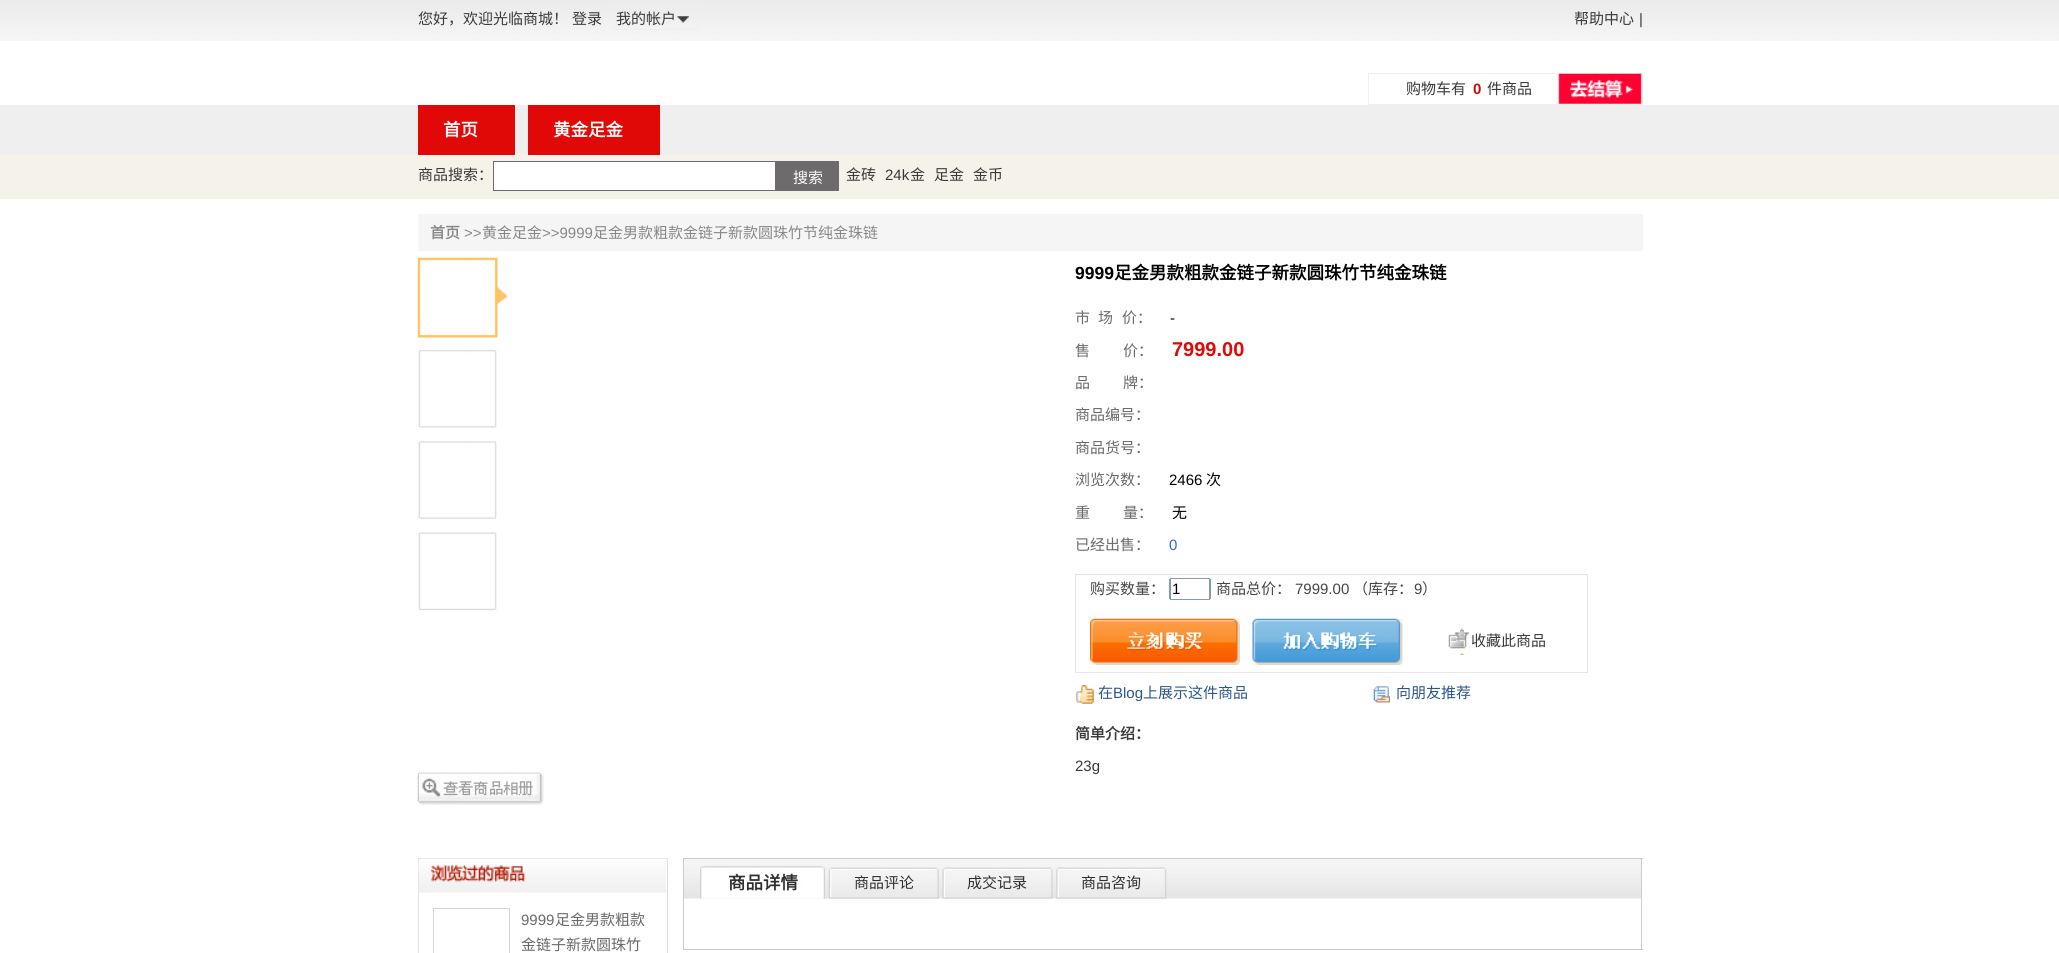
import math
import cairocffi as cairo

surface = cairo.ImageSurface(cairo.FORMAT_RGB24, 2059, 953)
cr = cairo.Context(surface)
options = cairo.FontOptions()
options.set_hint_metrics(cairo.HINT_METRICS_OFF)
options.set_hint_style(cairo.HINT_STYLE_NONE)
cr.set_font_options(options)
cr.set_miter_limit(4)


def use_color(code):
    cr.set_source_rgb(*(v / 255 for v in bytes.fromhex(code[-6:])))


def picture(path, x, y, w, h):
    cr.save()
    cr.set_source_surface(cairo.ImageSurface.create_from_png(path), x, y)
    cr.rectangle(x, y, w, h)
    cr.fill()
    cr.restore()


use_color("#ffffff")
cr.paint()
picture("img1.png", 0, 0, 2059, 41)
cr.select_font_face("Noto Sans CJK SC")
cr.set_font_size(15)
use_color("#393939")
cr.move_to(418, 24)
cr.show_text("您好，欢迎光临商城！")
cr.move_to(572, 24)
cr.show_text("登录")
cr.rectangle(613.5, 5.5, 84, 24)
use_color("#efefef")
cr.set_line_width(1)
cr.stroke()
use_color("#393939")
cr.move_to(616, 24)
cr.show_text("我的帐户")
picture("img2.png", 677, 16, 12, 7)
cr.move_to(1574, 24)
cr.show_text("帮助中心")
cr.select_font_face("Liberation Sans")
cr.move_to(1639, 24)
cr.show_text("|")
cr.rectangle(1368.5, 73.5, 274, 31)
use_color("#efefef")
cr.stroke()
cr.select_font_face("Noto Sans CJK SC")
use_color("#393939")
cr.move_to(1406, 94)
cr.show_text("购物车有")
cr.select_font_face("Liberation Sans", cairo.FONT_SLANT_NORMAL, cairo.FONT_WEIGHT_BOLD)
use_color("#bd110c")
cr.move_to(1473, 94)
cr.show_text("0")
cr.select_font_face("Noto Sans CJK SC")
use_color("#393939")
cr.move_to(1487, 94)
cr.show_text("件商品")
picture("img3.png", 1558, 73, 84, 31)
use_color("#efefef")
cr.rectangle(0, 105, 2059, 50)
cr.fill()
use_color("#e00907")
cr.rectangle(418, 105, 97, 50)
cr.fill()
cr.select_font_face("Noto Sans CJK SC", cairo.FONT_SLANT_NORMAL, cairo.FONT_WEIGHT_BOLD)
cr.set_font_size(17.5)
use_color("#ffffff")
cr.move_to(443, 136)
cr.show_text("首页")
use_color("#e00907")
cr.rectangle(528, 105, 132, 50)
cr.fill()
use_color("#ffffff")
cr.move_to(553, 136)
cr.show_text("黄金足金")
use_color("#f5f2e9")
cr.rectangle(0, 155, 2059, 44)
cr.fill()
cr.select_font_face("Noto Sans CJK SC")
cr.set_font_size(15)
use_color("#393939")
cr.move_to(418, 180)
cr.show_text("商品搜索：")
use_color("#ffffff")
cr.rectangle(493.5, 161.5, 282, 29)
cr.fill_preserve()
use_color("#6d6b6c")
cr.stroke()
cr.rectangle(776, 161, 63, 30)
cr.fill()
use_color("#ffffff")
cr.move_to(793, 183)
cr.show_text("搜索")
use_color("#393939")
cr.move_to(846, 180)
cr.show_text("金砖")
cr.select_font_face("Liberation Sans")
cr.move_to(885, 180)
cr.show_text("24k")
cr.select_font_face("Noto Sans CJK SC")
cr.move_to(910, 180)
cr.show_text("金")
cr.move_to(934, 180)
cr.show_text("足金")
cr.move_to(973, 180)
cr.show_text("金币")
use_color("#f5f5f5")
cr.rectangle(418, 214, 1225, 37)
cr.fill()
cr.select_font_face("Noto Sans CJK SC", cairo.FONT_SLANT_NORMAL, cairo.FONT_WEIGHT_BOLD)
use_color("#888888")
cr.move_to(430, 238)
cr.show_text("首页")
cr.select_font_face("Liberation Sans")
cr.move_to(464, 238)
cr.show_text(">>")
cr.select_font_face("Noto Sans CJK SC")
cr.move_to(482, 238)
cr.show_text("黄金足金")
cr.select_font_face("Liberation Sans")
cr.move_to(542, 238)
cr.show_text(">>9999")
cr.select_font_face("Noto Sans CJK SC")
cr.move_to(593, 238)
cr.show_text("足金男款粗款金链子新款圆珠竹节纯金珠链")
picture("img4.png", 417, 257, 91, 81)
picture("img5.png", 418, 349, 79, 79)
picture("img6.png", 418, 441, 79, 78)
picture("img7.png", 418, 532, 79, 79)
picture("img8.png", 417, 772, 127, 33)
cr.select_font_face("Liberation Sans", cairo.FONT_SLANT_NORMAL, cairo.FONT_WEIGHT_BOLD)
cr.set_font_size(17.5)
use_color("#010101")
cr.move_to(1075, 279)
cr.show_text("9999")
cr.select_font_face("Noto Sans CJK SC", cairo.FONT_SLANT_NORMAL, cairo.FONT_WEIGHT_BOLD)
cr.move_to(1114, 279)
cr.show_text("足金男款粗款金链子新款圆珠竹节纯金珠链")
cr.select_font_face("Noto Sans CJK SC")
cr.set_font_size(15)
use_color("#696969")
cr.move_to(1075, 323)
cr.show_text("市")
cr.move_to(1098, 323)
cr.show_text("场")
cr.move_to(1122, 323)
cr.show_text("价：")
cr.select_font_face("Liberation Sans")
use_color("#010101")
cr.move_to(1170, 323)
cr.show_text("-")
cr.select_font_face("Noto Sans CJK SC")
use_color("#696969")
cr.move_to(1075, 356)
cr.show_text("售")
cr.move_to(1123, 356)
cr.show_text("价：")
cr.select_font_face("Liberation Sans", cairo.FONT_SLANT_NORMAL, cairo.FONT_WEIGHT_BOLD)
cr.set_font_size(20)
use_color("#e00907")
cr.move_to(1172, 356)
cr.show_text("7999.00")
cr.select_font_face("Noto Sans CJK SC")
cr.set_font_size(15)
use_color("#696969")
cr.move_to(1075, 388)
cr.show_text("品")
cr.move_to(1123, 388)
cr.show_text("牌：")
cr.move_to(1075, 420)
cr.show_text("商品编号：")
cr.move_to(1075, 453)
cr.show_text("商品货号：")
cr.move_to(1075, 485)
cr.show_text("浏览次数：")
cr.select_font_face("Liberation Sans")
use_color("#010101")
cr.move_to(1169, 485)
cr.show_text("2466")
cr.select_font_face("Noto Sans CJK SC")
cr.move_to(1206, 485)
cr.show_text("次")
use_color("#696969")
cr.move_to(1075, 518)
cr.show_text("重")
cr.move_to(1123, 518)
cr.show_text("量：")
use_color("#010101")
cr.move_to(1172, 518)
cr.show_text("无")
use_color("#696969")
cr.move_to(1075, 550)
cr.show_text("已经出售：")
cr.select_font_face("Liberation Sans")
use_color("#3366cc")
cr.move_to(1169, 550)
cr.show_text("0")
cr.rectangle(1075.5, 574.5, 512, 98)
use_color("#e6e6e6")
cr.stroke()
cr.select_font_face("Noto Sans CJK SC")
use_color("#454545")
cr.move_to(1090, 594)
cr.show_text("购买数量：")
cr.rectangle(1169.5, 579.5, 41, 19)
use_color("#859ab9")
cr.stroke()
use_color("#ffffff")
cr.rectangle(1170.5, 578.5, 39, 21)
cr.fill_preserve()
use_color("#859ab9")
cr.stroke()
cr.select_font_face("Liberation Sans")
use_color("#010101")
cr.move_to(1172, 594)
cr.show_text("1")
cr.select_font_face("Noto Sans CJK SC")
use_color("#454545")
cr.move_to(1216, 594)
cr.show_text("商品总价：")
cr.select_font_face("Liberation Sans")
cr.move_to(1295, 594)
cr.show_text("7999.00")
cr.select_font_face("Noto Sans CJK SC")
cr.move_to(1353, 594)
cr.show_text("（库存：")
cr.select_font_face("Liberation Sans")
cr.move_to(1414, 594)
cr.show_text("9")
cr.select_font_face("Noto Sans CJK SC")
cr.move_to(1422, 594)
cr.show_text("）")
picture("img9.png", 1090, 618, 150, 47)
picture("img10.png", 1252, 618, 151, 47)
picture("img11.png", 1448, 628, 21, 27)
use_color("#393939")
cr.move_to(1471, 646)
cr.show_text("收藏此商品")
picture("img12.png", 1075, 685, 19, 19)
use_color("#2c578a")
cr.move_to(1098, 698)
cr.show_text("在")
cr.select_font_face("Liberation Sans")
cr.move_to(1113, 698)
cr.show_text("Blog")
cr.select_font_face("Noto Sans CJK SC")
cr.move_to(1143, 698)
cr.show_text("上展示这件商品")
picture("img13.png", 1373, 686, 17, 17)
cr.move_to(1396, 698)
cr.show_text("向朋友推荐")
cr.select_font_face("Noto Sans CJK SC", cairo.FONT_SLANT_NORMAL, cairo.FONT_WEIGHT_BOLD)
use_color("#393939")
cr.move_to(1075, 739)
cr.show_text("简单介绍：")
cr.select_font_face("Liberation Sans")
cr.move_to(1075, 771)
cr.show_text("23g")
use_color("#cccccc")
cr.rectangle(683, 858, 960, 1)
cr.fill()
cr.rectangle(1641, 858, 1, 92)
cr.fill()
cr.rectangle(683, 858, 1, 41)
cr.fill()
picture("img14.png", 684, 859, 957, 40)
picture("img15.png", 700, 866, 125, 33)
cr.select_font_face("Noto Sans CJK SC", cairo.FONT_SLANT_NORMAL, cairo.FONT_WEIGHT_BOLD)
cr.set_font_size(17.5)
use_color("#2f2f2f")
cr.move_to(728, 889)
cr.show_text("商品详情")
picture("img16.png", 828, 867, 111, 32)
cr.select_font_face("Noto Sans CJK SC")
cr.set_font_size(15)
cr.move_to(854, 888)
cr.show_text("商品评论")
picture("img17.png", 942, 867, 111, 32)
cr.move_to(967, 888)
cr.show_text("成交记录")
picture("img18.png", 1056, 867, 111, 32)
cr.move_to(1081, 888)
cr.show_text("商品咨询")
use_color("#cccccc")
cr.rectangle(683, 949, 960, 1)
cr.fill()
cr.rectangle(683, 899, 1, 51)
cr.fill()
cr.rectangle(418.5, 858.5, 249, 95)
use_color("#e1e3e0")
cr.stroke()
picture("img19.png", 418, 858, 249, 35)
picture("img20.png", 431, 865, 96, 18)
cr.rectangle(433.5, 908.5, 76, 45)
use_color("#d4d4d4")
cr.stroke()
cr.select_font_face("Liberation Sans")
use_color("#696969")
cr.move_to(521, 925)
cr.show_text("9999")
cr.select_font_face("Noto Sans CJK SC")
cr.move_to(555, 925)
cr.show_text("足金男款粗款")
cr.move_to(521, 950)
cr.show_text("金链子新款圆珠竹")
surface.write_to_png("result.png")
